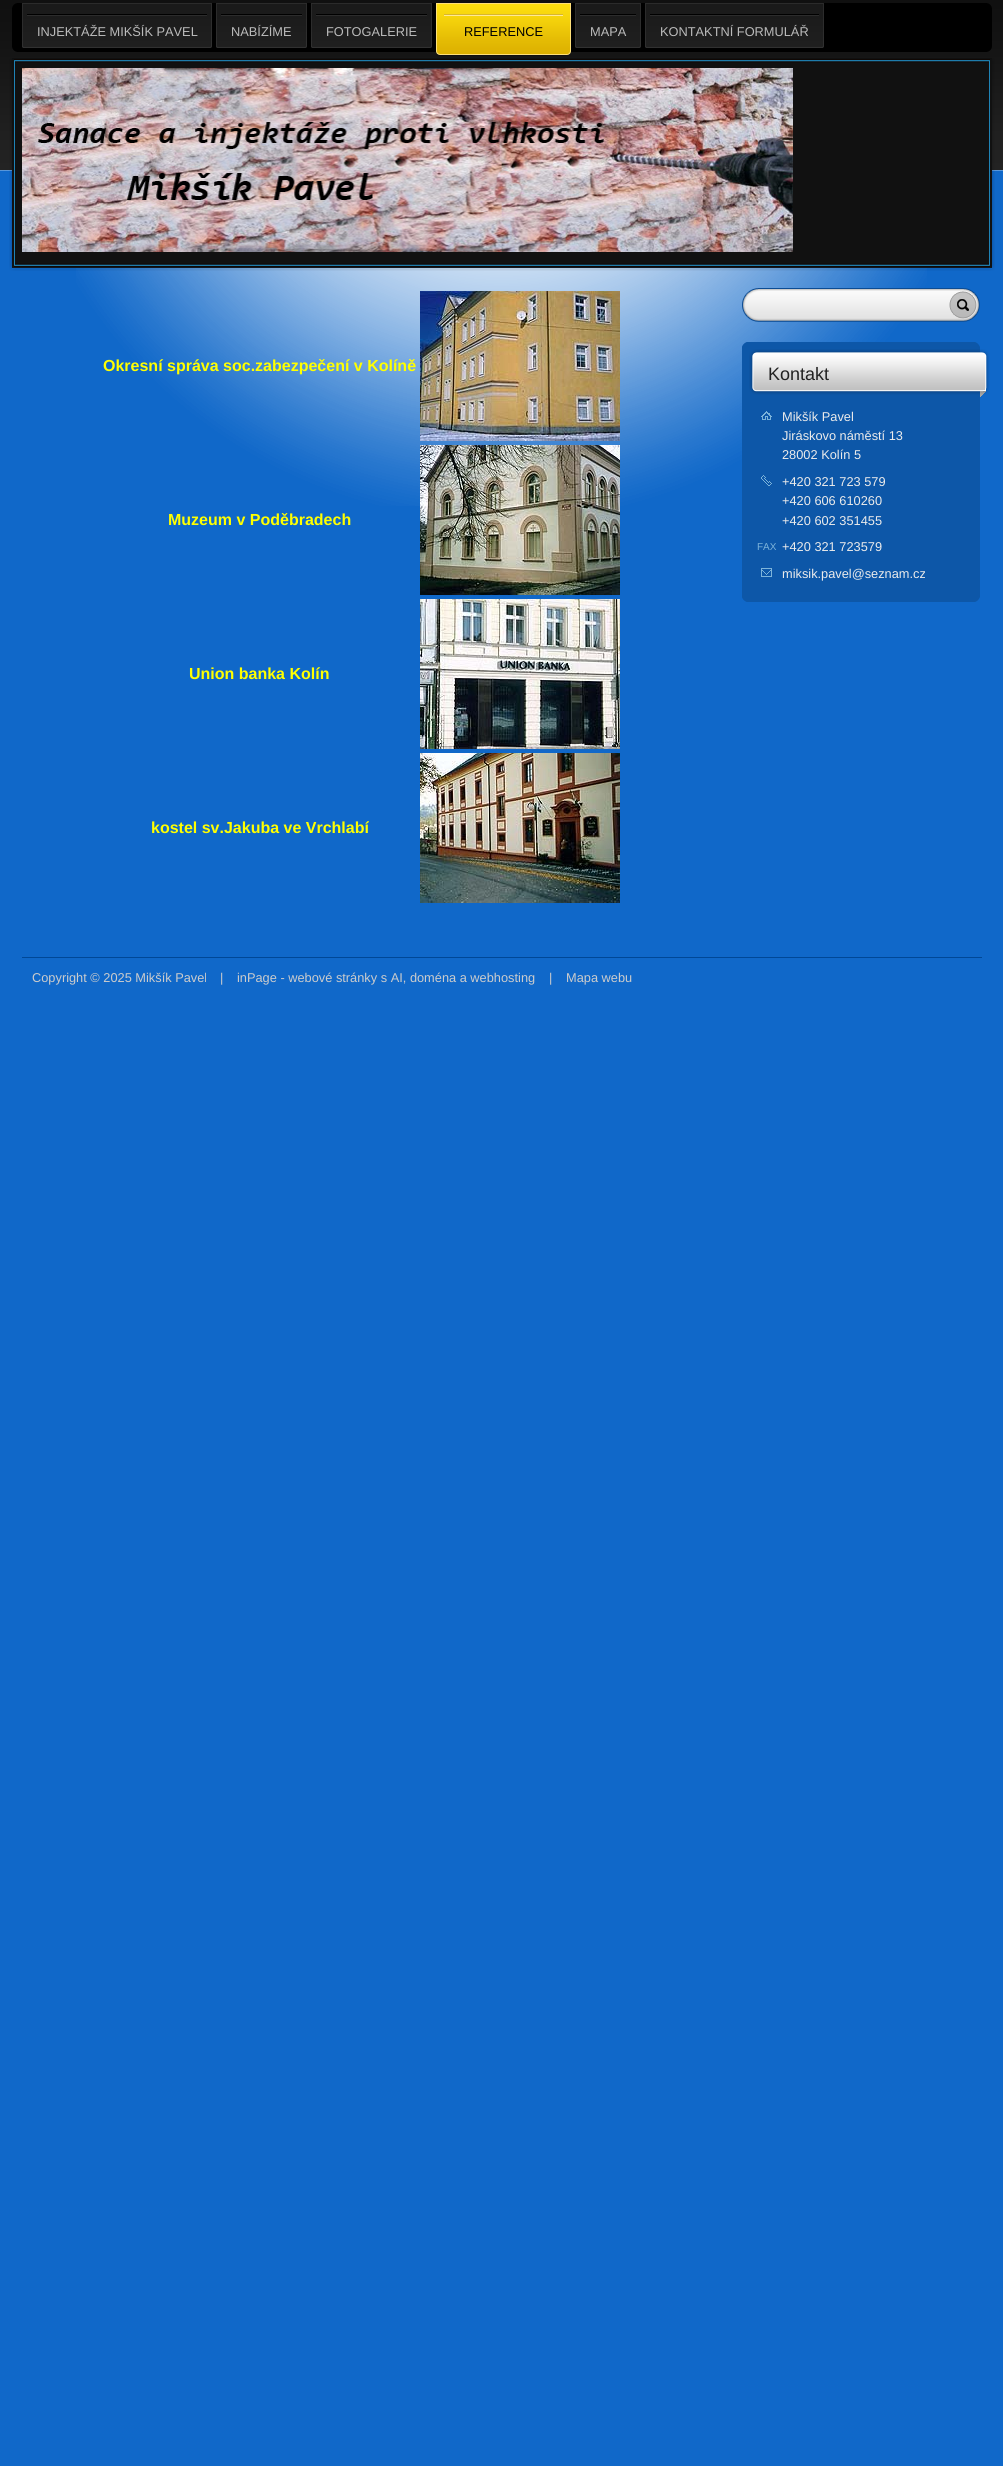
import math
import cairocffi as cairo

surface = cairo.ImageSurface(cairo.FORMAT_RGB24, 1003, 2466)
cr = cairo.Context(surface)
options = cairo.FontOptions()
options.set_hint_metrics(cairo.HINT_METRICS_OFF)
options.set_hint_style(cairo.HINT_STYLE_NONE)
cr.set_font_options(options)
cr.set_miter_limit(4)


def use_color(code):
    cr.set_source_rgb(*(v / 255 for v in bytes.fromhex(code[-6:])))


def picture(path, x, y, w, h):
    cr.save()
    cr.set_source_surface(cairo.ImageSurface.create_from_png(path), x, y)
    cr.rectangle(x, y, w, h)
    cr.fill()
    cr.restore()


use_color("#1068c9")
cr.paint()
picture("img1.png", 0, 0, 1003, 171)
picture("img2.png", 2, 0, 1000, 171)
picture("img3.png", 76, 268, 851, 238)
picture("img4.png", 12, 3, 980, 49)
picture("img5.png", 22, 3, 190, 45)
picture("img6.png", 22, 4, 5, 44)
cr.select_font_face("Liberation Sans")
cr.set_font_size(12.8)
use_color("#bbbbbb")
cr.move_to(37, 36)
cr.show_text("INJEKTÁŽE MIKŠÍK PAVEL")
picture("img7.png", 207, 4, 5, 44)
picture("img8.png", 216, 3, 91, 45)
picture("img6.png", 216, 4, 5, 44)
cr.move_to(231, 36)
cr.show_text("NABÍZÍME")
picture("img7.png", 302, 4, 5, 44)
picture("img9.png", 311, 3, 121, 45)
picture("img6.png", 311, 4, 5, 44)
cr.move_to(326, 36)
cr.show_text("FOTOGALERIE")
picture("img7.png", 427, 4, 5, 44)
picture("img10.png", 444, 3, 119, 53)
picture("img11.png", 436, 3, 8, 53)
use_color("#000000")
cr.move_to(464, 36)
cr.show_text("REFERENCE")
picture("img12.png", 563, 3, 8, 53)
picture("img13.png", 575, 3, 66, 45)
picture("img6.png", 575, 4, 5, 44)
use_color("#bbbbbb")
cr.move_to(590, 36)
cr.show_text("MAPA")
picture("img7.png", 636, 4, 5, 44)
picture("img14.png", 645, 3, 179, 45)
picture("img6.png", 645, 4, 5, 44)
cr.move_to(660, 36)
cr.show_text("KONTAKTNÍ FORMULÁŘ")
picture("img7.png", 819, 4, 5, 44)
picture("img15.png", 9, 58, 986, 213)
picture("img16.png", 22, 68, 771, 184)
cr.select_font_face("Liberation Sans", cairo.FONT_SLANT_NORMAL, cairo.FONT_WEIGHT_BOLD)
cr.set_font_size(16)
use_color("#ffff00")
cr.move_to(103, 371)
cr.show_text("Okresní správa soc.zabezpečení v Kolíně")
picture("img17.png", 420, 291, 200, 150)
cr.move_to(168, 525)
cr.show_text("Muzeum v Poděbradech")
picture("img18.png", 420, 445, 200, 150)
cr.move_to(189, 679)
cr.show_text("Union banka Kolín")
picture("img19.png", 420, 599, 200, 150)
cr.move_to(151, 833)
cr.show_text("kostel sv.Jakuba ve Vrchlabí")
picture("img20.png", 420, 753, 200, 150)
picture("img21.png", 742, 288, 207, 34)
picture("img22.png", 949, 288, 31, 34)
picture("img23.png", 742, 342, 238, 6)
use_color("#0d57a8")
cr.rectangle(742, 348, 238, 248)
cr.fill()
picture("img24.png", 749, 349, 241, 48)
cr.select_font_face("Liberation Sans")
cr.set_font_size(18)
use_color("#222222")
cr.move_to(768, 380)
cr.show_text("Kontakt")
picture("img25.png", 761, 411, 11, 9)
cr.set_font_size(12.8)
use_color("#ebebeb")
cr.move_to(782, 421)
cr.show_text("Mikšík Pavel")
cr.move_to(782, 440)
cr.show_text("Jiráskovo náměstí 13")
cr.move_to(782, 459)
cr.show_text("28002 Kolín 5")
picture("img26.png", 761, 475, 11, 11)
cr.move_to(782, 486)
cr.show_text("+420 321 723 579")
cr.move_to(782, 505)
cr.show_text("+420 606 610260")
cr.move_to(782, 525)
cr.show_text("+420 602 351455")
cr.set_font_size(10)
use_color("#7db4da")
cr.move_to(757, 550)
cr.show_text("FAX")
cr.set_font_size(12.8)
use_color("#ebebeb")
cr.move_to(782, 551)
cr.show_text("+420 321 723579")
picture("img27.png", 761, 568, 11, 9)
cr.move_to(782, 578)
cr.show_text("miksik.pavel@seznam.cz")
picture("img28.png", 742, 596, 238, 6)
use_color("#004897")
cr.rectangle(22, 957, 960, 1)
cr.fill()
use_color("#cccccc")
cr.move_to(32, 982)
cr.show_text("Copyright © 2025 Mikšík Pavel")
cr.move_to(220, 982)
cr.show_text("|")
cr.move_to(237, 982)
cr.show_text("inPage - webové stránky s AI, doména a webhosting")
cr.move_to(549, 982)
cr.show_text("|")
cr.move_to(566, 982)
cr.show_text("Mapa webu")
surface.write_to_png("result.png")
